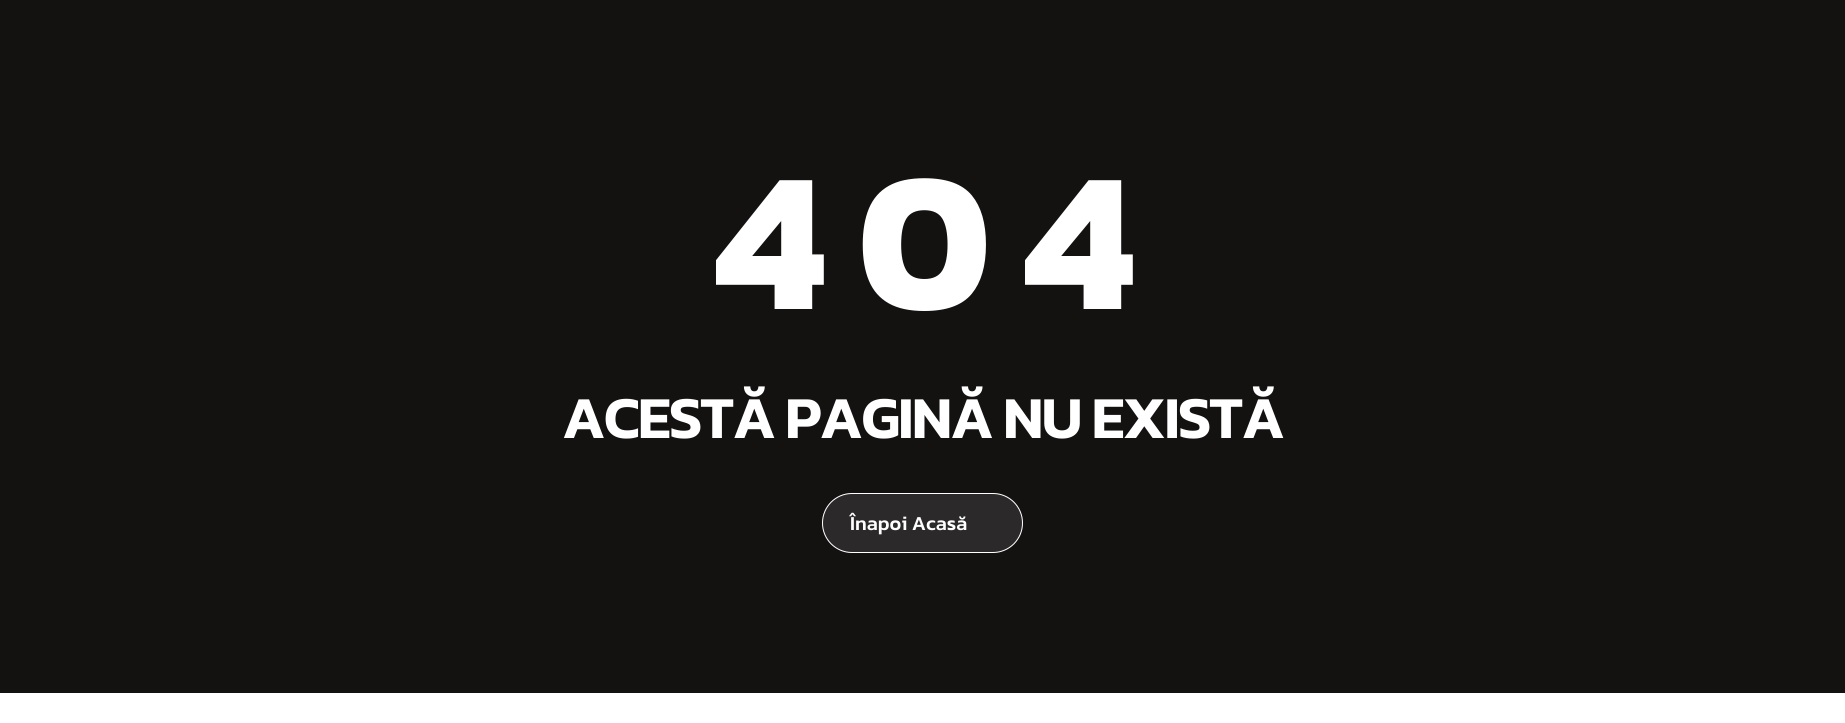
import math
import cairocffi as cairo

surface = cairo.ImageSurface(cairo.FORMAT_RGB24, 1845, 723)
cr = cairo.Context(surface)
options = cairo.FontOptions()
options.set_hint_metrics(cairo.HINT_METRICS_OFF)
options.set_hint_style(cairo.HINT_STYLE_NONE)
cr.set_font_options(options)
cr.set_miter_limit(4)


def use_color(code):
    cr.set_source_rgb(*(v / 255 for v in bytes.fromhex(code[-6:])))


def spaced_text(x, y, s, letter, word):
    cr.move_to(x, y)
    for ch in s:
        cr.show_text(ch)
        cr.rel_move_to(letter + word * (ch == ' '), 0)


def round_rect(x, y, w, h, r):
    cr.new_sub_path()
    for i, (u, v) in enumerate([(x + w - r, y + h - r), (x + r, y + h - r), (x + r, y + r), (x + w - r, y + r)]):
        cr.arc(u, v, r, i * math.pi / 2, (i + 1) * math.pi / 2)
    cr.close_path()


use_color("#ffffff")
cr.paint()
use_color("#141111")
cr.rectangle(0, 0, 1845, 693)
cr.fill()
cr.select_font_face("Kanit", cairo.FONT_SLANT_NORMAL, cairo.FONT_WEIGHT_BOLD)
cr.set_font_size(200)
use_color("#ffffff")
spaced_text(715, 309, "4 0 4", -4, 0)
cr.select_font_face("Kanit SemiBold")
cr.set_font_size(60)
spaced_text(562, 438, "ACESTĂ PAGINĂ NU EXISTĂ", -2, 0)
use_color("#2b2929")
round_rect(822, 493, 201, 60, 30)
cr.fill()
round_rect(822.5, 493.5, 200, 59, 29.5)
use_color("#ffffff")
cr.set_line_width(1)
cr.stroke()
cr.select_font_face("Kanit Medium")
cr.set_font_size(20)
cr.move_to(850, 530)
cr.show_text("Înapoi Acasă")
surface.write_to_png("result.png")
